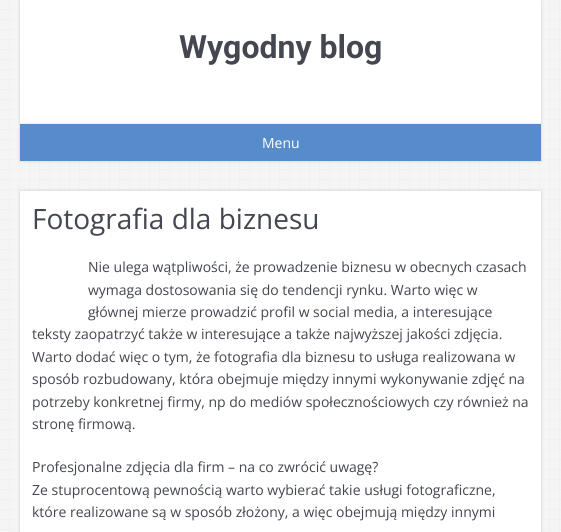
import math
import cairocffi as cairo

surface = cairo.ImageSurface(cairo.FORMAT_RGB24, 561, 532)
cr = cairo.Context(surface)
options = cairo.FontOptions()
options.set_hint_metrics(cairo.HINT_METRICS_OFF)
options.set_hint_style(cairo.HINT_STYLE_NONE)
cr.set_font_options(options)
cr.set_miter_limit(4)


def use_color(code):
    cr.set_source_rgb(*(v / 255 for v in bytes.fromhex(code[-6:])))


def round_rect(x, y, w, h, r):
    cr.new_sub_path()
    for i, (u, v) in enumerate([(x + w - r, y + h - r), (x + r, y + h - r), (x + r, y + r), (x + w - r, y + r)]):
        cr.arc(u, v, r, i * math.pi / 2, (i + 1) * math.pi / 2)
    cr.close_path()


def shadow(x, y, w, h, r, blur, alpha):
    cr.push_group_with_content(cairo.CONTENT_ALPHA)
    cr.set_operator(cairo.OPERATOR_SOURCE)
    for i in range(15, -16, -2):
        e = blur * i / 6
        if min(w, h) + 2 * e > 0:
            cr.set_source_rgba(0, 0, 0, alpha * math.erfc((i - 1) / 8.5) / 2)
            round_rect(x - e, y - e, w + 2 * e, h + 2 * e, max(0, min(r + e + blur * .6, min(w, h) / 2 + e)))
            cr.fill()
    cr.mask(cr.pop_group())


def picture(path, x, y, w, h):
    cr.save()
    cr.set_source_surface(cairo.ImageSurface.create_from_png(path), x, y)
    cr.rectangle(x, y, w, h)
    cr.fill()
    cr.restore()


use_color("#ffffff")
cr.paint()
picture("img1.png", 0, 0, 561, 532)
use_color("#cccccc")
shadow(20, 0, 521, 161, 0, 1.5, 1)
use_color("#ffffff")
cr.rectangle(20, 0, 521, 123)
cr.fill()
cr.select_font_face("Roboto", cairo.FONT_SLANT_NORMAL, cairo.FONT_WEIGHT_BOLD)
cr.set_font_size(32)
use_color("#444650")
cr.move_to(179, 58)
cr.show_text("Wygodny blog")
use_color("#eeeeee")
cr.rectangle(20, 123, 521, 1)
cr.fill()
use_color("#578cca")
cr.rectangle(20, 124, 521, 37)
cr.fill()
cr.select_font_face("Open Sans")
cr.set_font_size(14)
use_color("#ffffff")
cr.move_to(262, 148)
cr.show_text("Menu")
use_color("#cccccc")
shadow(20, 191, 521, 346, 0, 1.5, 1)
use_color("#ffffff")
cr.rectangle(20, 191, 521, 341)
cr.fill()
cr.set_font_size(28)
use_color("#444650")
cr.move_to(32, 229)
cr.show_text("Fotografia dla biznesu")
cr.set_font_size(14)
cr.move_to(88, 272)
cr.show_text("Nie ulega wątpliwości, że prowadzenie biznesu w obecnych czasach")
cr.move_to(88, 295)
cr.show_text("wymaga dostosowania się do tendencji rynku. Warto więc w")
cr.move_to(88, 317)
cr.show_text("głównej mierze prowadzić profil w social media, a interesujące")
cr.move_to(32, 339)
cr.show_text("teksty zaopatrzyć także w interesujące a także najwyższej jakości zdjęcia.")
cr.move_to(32, 362)
cr.show_text("Warto dodać więc o tym, że fotografia dla biznesu to usługa realizowana w")
cr.move_to(32, 384)
cr.show_text("sposób rozbudowany, która obejmuje między innymi wykonywanie zdjęć na")
cr.move_to(32, 407)
cr.show_text("potrzeby konkretnej firmy, np do mediów społecznościowych czy również na")
cr.move_to(32, 429)
cr.show_text("stronę firmową.")
cr.move_to(32, 472)
cr.show_text("Profesjonalne zdjęcia dla firm – na co zwrócić uwagę?")
cr.move_to(32, 495)
cr.show_text("Ze stuprocentową pewnością warto wybierać takie usługi fotograficzne,")
cr.move_to(32, 517)
cr.show_text("które realizowane są w sposób złożony, a więc obejmują między innymi")
surface.write_to_png("result.png")
